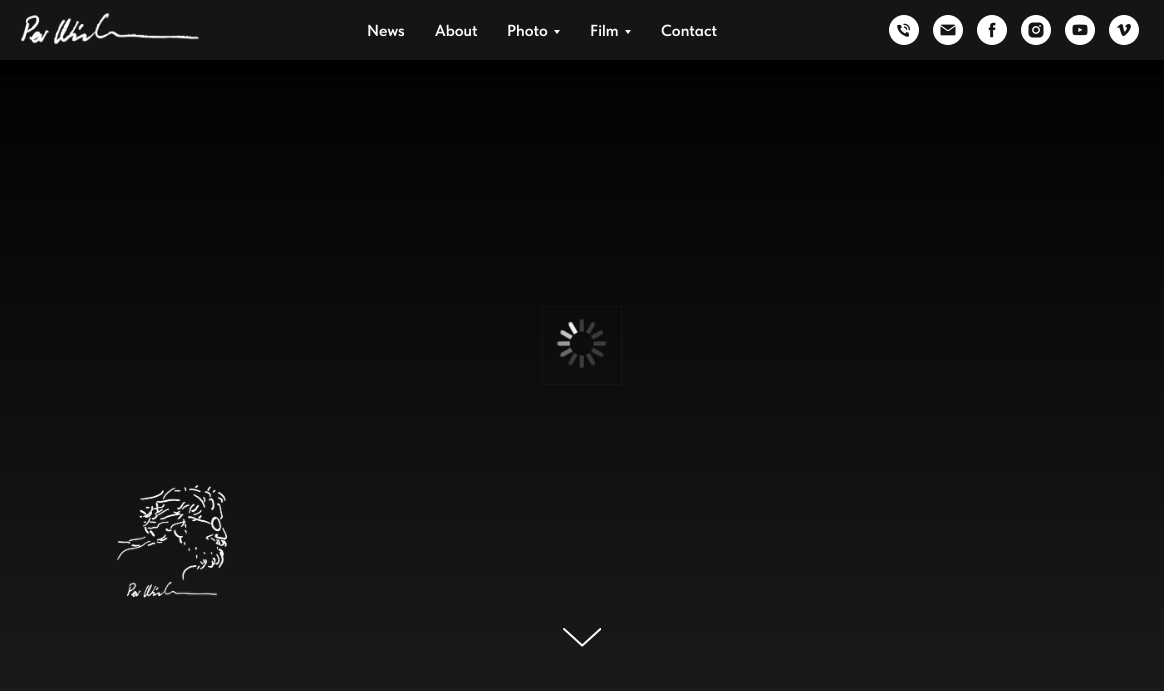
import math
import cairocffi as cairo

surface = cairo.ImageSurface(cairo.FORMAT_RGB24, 1164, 691)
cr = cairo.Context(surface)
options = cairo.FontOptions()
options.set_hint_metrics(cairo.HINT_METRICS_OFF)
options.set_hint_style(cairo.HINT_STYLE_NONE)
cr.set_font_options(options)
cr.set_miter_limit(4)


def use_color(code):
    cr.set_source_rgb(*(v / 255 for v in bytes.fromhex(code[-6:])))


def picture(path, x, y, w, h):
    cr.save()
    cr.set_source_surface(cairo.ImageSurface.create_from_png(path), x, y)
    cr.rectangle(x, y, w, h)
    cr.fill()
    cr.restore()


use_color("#000000")
cr.paint()
use_color("#151515")
cr.rectangle(0, 0, 1164, 60)
cr.fill()
picture("img1.png", 20, 12, 180, 33)
cr.select_font_face("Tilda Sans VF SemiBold")
cr.set_font_size(16)
use_color("#ffffff")
cr.move_to(367, 36)
cr.show_text("News")
cr.move_to(435, 36)
cr.show_text("About")
cr.move_to(507, 36)
cr.show_text("Photo")
cr.new_path()
cr.move_to(554, 30)
cr.line_to(560, 30)
cr.line_to(557, 34)
cr.close_path()
cr.fill()
cr.move_to(590, 36)
cr.show_text("Film")
cr.new_path()
cr.move_to(625, 30)
cr.line_to(631, 30)
cr.line_to(628, 34)
cr.close_path()
cr.fill()
cr.move_to(661, 36)
cr.show_text("Contact")
picture("img2.png", 889, 15, 30, 30)
picture("img3.png", 933, 15, 30, 30)
picture("img4.png", 977, 15, 30, 30)
picture("img5.png", 1021, 15, 30, 30)
picture("img6.png", 1065, 15, 30, 30)
picture("img7.png", 1109, 15, 30, 30)
picture("img8.png", 542, 306, 80, 79)
gradient = cairo.LinearGradient(582, 0, 582, 691)
gradient.add_color_stop_rgba(0, 0.502, 0.502, 0.502, 0)
gradient.add_color_stop_rgba(1, 0.502, 0.502, 0.502, 0.2)
cr.set_source(gradient)
cr.rectangle(0, 75, 1164, 616)
cr.fill()
picture("img9.png", 116, 485, 111, 113)
picture("img10.png", 563, 628, 38, 19)
surface.write_to_png("result.png")
